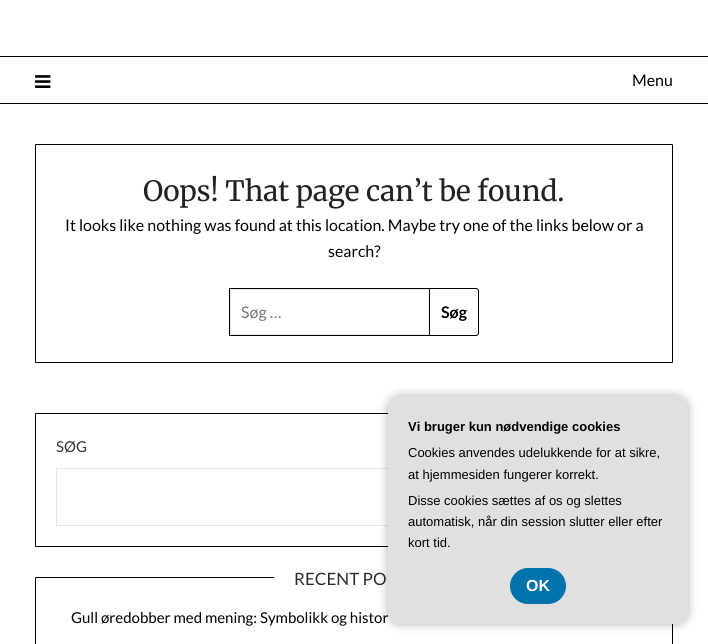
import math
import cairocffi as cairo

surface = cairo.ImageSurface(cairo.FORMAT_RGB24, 708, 644)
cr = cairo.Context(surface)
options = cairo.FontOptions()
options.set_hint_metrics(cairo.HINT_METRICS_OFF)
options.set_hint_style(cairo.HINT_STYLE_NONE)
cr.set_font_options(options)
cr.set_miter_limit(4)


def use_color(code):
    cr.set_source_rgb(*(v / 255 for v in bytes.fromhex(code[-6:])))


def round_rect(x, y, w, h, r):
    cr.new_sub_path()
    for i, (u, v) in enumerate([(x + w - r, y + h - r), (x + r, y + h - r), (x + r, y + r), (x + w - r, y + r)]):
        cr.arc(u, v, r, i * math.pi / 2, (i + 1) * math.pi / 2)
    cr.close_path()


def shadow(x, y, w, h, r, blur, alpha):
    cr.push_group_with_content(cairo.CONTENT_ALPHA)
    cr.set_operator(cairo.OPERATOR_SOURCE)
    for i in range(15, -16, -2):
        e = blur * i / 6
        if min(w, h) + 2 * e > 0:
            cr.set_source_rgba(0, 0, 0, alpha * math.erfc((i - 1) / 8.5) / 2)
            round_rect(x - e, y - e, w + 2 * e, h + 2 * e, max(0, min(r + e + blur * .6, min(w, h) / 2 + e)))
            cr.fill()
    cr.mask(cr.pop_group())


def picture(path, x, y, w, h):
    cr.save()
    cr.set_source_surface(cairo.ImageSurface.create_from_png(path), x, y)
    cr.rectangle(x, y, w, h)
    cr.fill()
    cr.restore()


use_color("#ffffff")
cr.paint()
use_color("#000000")
cr.rectangle(0, 56, 708, 1)
cr.fill()
cr.rectangle(0, 103, 708, 1)
cr.fill()
picture("img1.png", 35, 75, 16, 13)
cr.select_font_face("Lato")
cr.set_font_size(16)
cr.move_to(632, 86)
cr.show_text("Menu")
round_rect(35.5, 144.5, 637, 218, 0.5)
cr.set_line_width(1)
cr.stroke()
cr.select_font_face("Merriweather")
cr.set_font_size(28)
use_color("#222222")
cr.move_to(143, 201)
cr.show_text("Oops! That page can’t be found.")
cr.select_font_face("Lato")
cr.set_font_size(16)
use_color("#000000")
cr.move_to(65, 231)
cr.show_text("It looks like nothing was found at this location. Maybe try one of the links below or a")
cr.move_to(328, 257)
cr.show_text("search?")
cr.rectangle(229, 288, 201, 1)
cr.fill()
cr.rectangle(229, 335, 201, 1)
cr.fill()
cr.rectangle(229, 288, 1, 48)
cr.fill()
cr.rectangle(230.5, 289.5, 199, 45)
use_color("#e5e6e9")
cr.stroke()
use_color("#757575")
cr.move_to(241, 318)
cr.show_text("Søg …")
cr.new_path()
cr.move_to(429.5, 288.5)
cr.line_to(476, 288.5)
cr.curve_to(477.5, 288.5, 478.5, 289.5, 478.5, 291)
cr.line_to(478.5, 333)
cr.curve_to(478.5, 334.5, 477.5, 335.5, 476, 335.5)
cr.line_to(429.5, 335.5)
cr.close_path()
use_color("#000000")
cr.stroke()
cr.select_font_face("Lato", cairo.FONT_SLANT_NORMAL, cairo.FONT_WEIGHT_BOLD)
cr.move_to(441, 318)
cr.show_text("Søg")
round_rect(35.5, 413.5, 637, 133, 0.5)
cr.stroke()
cr.select_font_face("Lato")
cr.set_font_size(15)
use_color("#333333")
cr.move_to(56, 452)
cr.show_text("SØG")
cr.rectangle(56.5, 468.5, 519, 57)
use_color("#e5e6e9")
cr.stroke()
round_rect(35.5, 577.5, 637, 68, 0.5)
use_color("#000000")
cr.stroke()
use_color("#ffffff")
cr.rectangle(274, 577, 114, 1)
cr.fill()
cr.set_font_size(17)
use_color("#2b2b2b")
cr.move_to(294, 585)
cr.show_text("RECENT PO")
cr.set_font_size(15)
use_color("#000000")
cr.move_to(71, 623)
cr.show_text("Gull øredobber med mening: Symbolikk og histor")
use_color("#000000")
shadow(388, 396, 300, 228, 12, 5, 0.3)
use_color("#e0e0e0")
round_rect(388, 396, 300, 228, 12)
cr.fill()
cr.select_font_face("Liberation Sans", cairo.FONT_SLANT_NORMAL, cairo.FONT_WEIGHT_BOLD)
cr.set_font_size(13)
use_color("#000000")
cr.move_to(408, 431)
cr.show_text("Vi bruger kun nødvendige cookies")
cr.select_font_face("Liberation Sans")
cr.move_to(408, 457)
cr.show_text("Cookies anvendes udelukkende for at sikre,")
cr.move_to(408, 479)
cr.show_text("at hjemmesiden fungerer korrekt.")
cr.move_to(408, 505)
cr.show_text("Disse cookies sættes af os og slettes")
cr.move_to(408, 526)
cr.show_text("automatisk, når din session slutter eller efter")
cr.move_to(408, 547)
cr.show_text("kort tid.")
use_color("#0073aa")
round_rect(510, 568, 56, 36, 18)
cr.fill()
cr.select_font_face("Liberation Sans", cairo.FONT_SLANT_NORMAL, cairo.FONT_WEIGHT_BOLD)
cr.set_font_size(16)
use_color("#ffffff")
cr.move_to(526, 591)
cr.show_text("OK")
surface.write_to_png("result.png")
